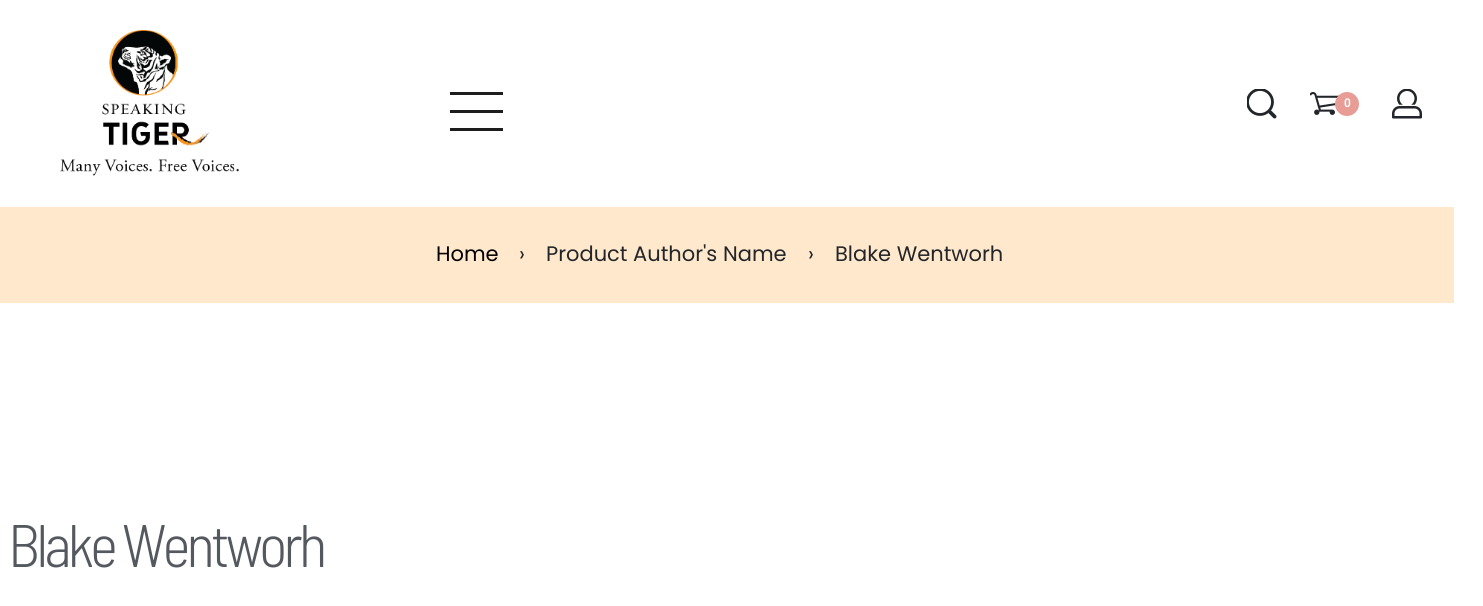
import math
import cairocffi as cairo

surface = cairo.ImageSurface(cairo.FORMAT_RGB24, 1483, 606)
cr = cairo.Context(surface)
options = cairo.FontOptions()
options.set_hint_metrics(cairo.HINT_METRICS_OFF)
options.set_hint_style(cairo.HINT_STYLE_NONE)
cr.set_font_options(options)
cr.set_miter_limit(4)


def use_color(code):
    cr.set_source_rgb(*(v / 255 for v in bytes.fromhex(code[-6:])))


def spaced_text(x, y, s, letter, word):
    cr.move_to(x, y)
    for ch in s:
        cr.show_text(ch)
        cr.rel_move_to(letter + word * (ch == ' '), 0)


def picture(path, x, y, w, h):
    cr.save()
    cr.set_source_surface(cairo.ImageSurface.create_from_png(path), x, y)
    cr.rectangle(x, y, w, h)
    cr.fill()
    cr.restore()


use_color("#ffffff")
cr.paint()
picture("img1.png", 60, 30, 179, 146)
use_color("#1d1d1d")
cr.rectangle(450, 92, 53, 3)
cr.fill()
cr.rectangle(450, 110, 53, 3)
cr.fill()
cr.rectangle(450, 128, 53, 3)
cr.fill()
picture("img2.png", 1247, 89, 30, 30)
picture("img3.png", 1310, 92, 30, 23)
use_color("#e79c96")
cr.arc(1347, 104, 12, 0, 2 * math.pi)
cr.fill()
cr.select_font_face("Roboto SemiBold")
cr.set_font_size(12)
use_color("#ffffff")
cr.move_to(1344, 107)
cr.show_text("0")
picture("img4.png", 1392, 89, 30, 30)
use_color("#ffe8cc")
cr.rectangle(0, 207, 1454, 96)
cr.fill()
cr.select_font_face("Poppins")
cr.set_font_size(21)
use_color("#000000")
cr.move_to(436, 261)
cr.show_text("Home")
use_color("#22262a")
cr.move_to(519, 261)
cr.show_text("›")
cr.move_to(546, 261)
cr.show_text("Product Author's Name")
cr.move_to(808, 261)
cr.show_text("›")
cr.move_to(835, 261)
cr.show_text("Blake Wentworh")
cr.select_font_face("Barlow Semi Condensed Light")
cr.set_font_size(60)
use_color("#54595f")
spaced_text(8, 567, "Blake Wentworh", -4, 0)
surface.write_to_png("result.png")
